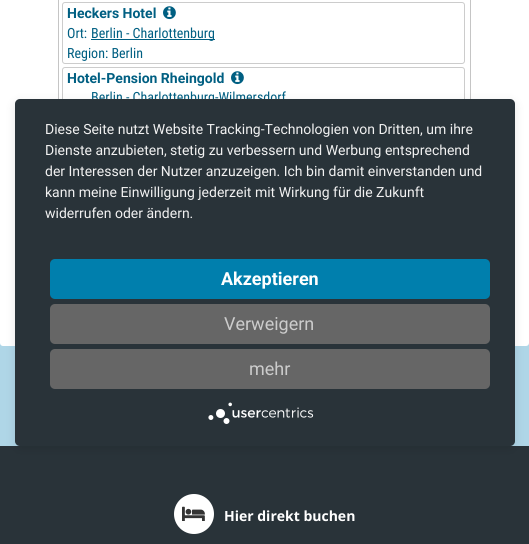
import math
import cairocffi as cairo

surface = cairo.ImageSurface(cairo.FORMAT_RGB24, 529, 544)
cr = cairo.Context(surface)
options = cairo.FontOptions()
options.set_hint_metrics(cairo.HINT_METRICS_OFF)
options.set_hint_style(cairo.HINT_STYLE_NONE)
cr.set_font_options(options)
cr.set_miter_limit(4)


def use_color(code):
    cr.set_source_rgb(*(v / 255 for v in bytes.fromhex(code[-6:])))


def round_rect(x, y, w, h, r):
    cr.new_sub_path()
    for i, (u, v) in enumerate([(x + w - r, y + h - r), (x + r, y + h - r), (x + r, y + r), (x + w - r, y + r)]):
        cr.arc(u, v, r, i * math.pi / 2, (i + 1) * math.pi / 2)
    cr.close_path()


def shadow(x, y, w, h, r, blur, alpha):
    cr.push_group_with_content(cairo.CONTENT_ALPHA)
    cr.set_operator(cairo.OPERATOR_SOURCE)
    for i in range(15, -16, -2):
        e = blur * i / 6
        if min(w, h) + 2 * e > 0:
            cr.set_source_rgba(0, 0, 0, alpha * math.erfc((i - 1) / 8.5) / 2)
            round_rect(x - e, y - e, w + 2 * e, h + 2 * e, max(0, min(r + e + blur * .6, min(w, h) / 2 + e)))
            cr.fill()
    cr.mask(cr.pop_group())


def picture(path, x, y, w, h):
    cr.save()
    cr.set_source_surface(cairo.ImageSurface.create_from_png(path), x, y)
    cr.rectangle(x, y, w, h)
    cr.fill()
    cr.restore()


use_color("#afd6e7")
cr.paint()
use_color("#ffffff")
round_rect(0, -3, 529, 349, 3)
cr.fill()
cr.rectangle(58.5, -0.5, 412, 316)
use_color("#c5c5c5")
cr.set_line_width(1)
cr.stroke()
round_rect(62.5, 2.5, 402, 61, 2.5)
use_color("#cccccc")
cr.stroke()
cr.select_font_face("Roboto", cairo.FONT_SLANT_NORMAL, cairo.FONT_WEIGHT_BOLD)
cr.set_font_size(14)
use_color("#005f82")
cr.move_to(67, 18)
cr.show_text("Heckers Hotel")
picture("img1.png", 163, 6, 13, 14)
cr.select_font_face("Roboto Condensed")
cr.move_to(67, 38)
cr.show_text("Ort:")
cr.rectangle(91, 39, 124, 1)
cr.fill()
cr.move_to(91, 38)
cr.show_text("Berlin - Charlottenburg")
cr.move_to(67, 58)
cr.show_text("Region: Berlin")
round_rect(62.5, 67.5, 402, 60, 2.5)
use_color("#cccccc")
cr.stroke()
cr.select_font_face("Roboto", cairo.FONT_SLANT_NORMAL, cairo.FONT_WEIGHT_BOLD)
use_color("#005f82")
cr.move_to(67, 83)
cr.show_text("Hotel-Pension Rheingold")
picture("img1.png", 231, 71, 13, 14)
cr.select_font_face("Roboto Condensed")
cr.move_to(91, 102)
cr.show_text("Berlin - Charlottenburg-Wilmersdorf")
use_color("#293339")
cr.rectangle(0, 446, 529, 98)
cr.fill()
use_color("#000000")
shadow(15, 102, 500, 347, 5, 5, 0.1)
use_color("#ffffff")
cr.arc(194, 514, 20, 0, 2 * math.pi)
cr.fill()
picture("img3.png", 182, 506, 23, 15)
cr.save()
round_rect(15, 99, 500, 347, 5)
cr.clip()
use_color("#000000")
shadow(15, 105, 500, 347, 0, 18, 0.3)
cr.restore()
use_color("#293339")
round_rect(15, 99, 500, 347, 5)
cr.fill()
cr.select_font_face("Roboto")
use_color("#f1f1f1")
cr.move_to(45, 134)
cr.show_text("Diese Seite nutzt Website Tracking-Technologien von Dritten, um ihre")
cr.move_to(45, 155)
cr.show_text("Dienste anzubieten, stetig zu verbessern und Werbung entsprechend")
cr.move_to(45, 176)
cr.show_text("der Interessen der Nutzer anzuzeigen. Ich bin damit einverstanden und")
cr.move_to(45, 197)
cr.show_text("kann meine Einwilligung jederzeit mit Wirkung für die Zukunft")
cr.move_to(45, 218)
cr.show_text("widerrufen oder ändern.")
use_color("#007fad")
round_rect(50, 259, 440, 40, 5)
cr.fill()
cr.select_font_face("Roboto", cairo.FONT_SLANT_NORMAL, cairo.FONT_WEIGHT_BOLD)
cr.set_font_size(18)
use_color("#ffffff")
cr.move_to(221, 285)
cr.show_text("Akzeptieren")
use_color("#666666")
round_rect(50, 304, 440, 40, 5)
cr.fill()
cr.select_font_face("Roboto")
use_color("#cccccc")
cr.move_to(224, 330)
cr.show_text("Verweigern")
use_color("#666666")
round_rect(50, 349, 440, 40, 5)
cr.fill()
use_color("#cccccc")
cr.move_to(249, 375)
cr.show_text("mehr")
picture("img2.png", 208, 402, 106, 22)
cr.select_font_face("Open Sans", cairo.FONT_SLANT_NORMAL, cairo.FONT_WEIGHT_BOLD)
cr.set_font_size(14)
use_color("#ffffff")
cr.move_to(224, 521)
cr.show_text("Hier direkt buchen")
surface.write_to_png("result.png")
